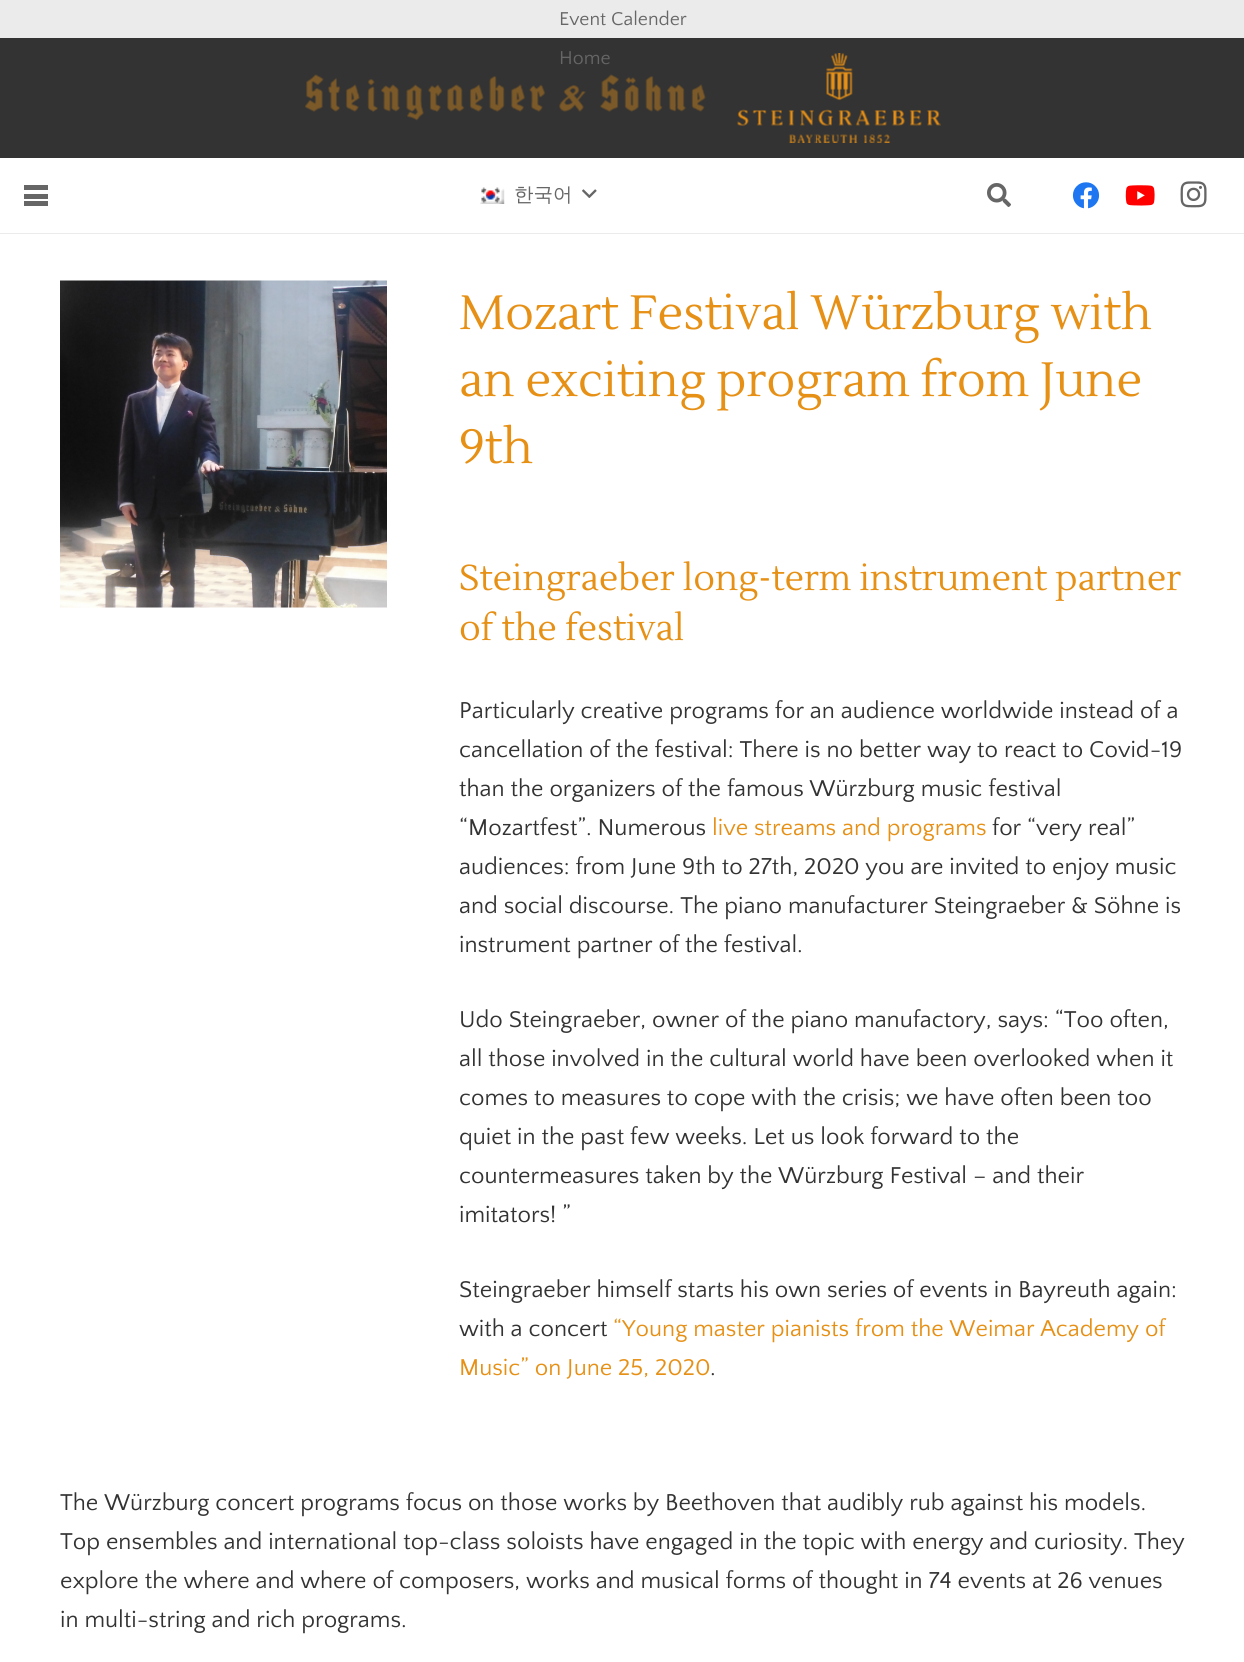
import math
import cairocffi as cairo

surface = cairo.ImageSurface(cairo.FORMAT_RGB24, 1244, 1662)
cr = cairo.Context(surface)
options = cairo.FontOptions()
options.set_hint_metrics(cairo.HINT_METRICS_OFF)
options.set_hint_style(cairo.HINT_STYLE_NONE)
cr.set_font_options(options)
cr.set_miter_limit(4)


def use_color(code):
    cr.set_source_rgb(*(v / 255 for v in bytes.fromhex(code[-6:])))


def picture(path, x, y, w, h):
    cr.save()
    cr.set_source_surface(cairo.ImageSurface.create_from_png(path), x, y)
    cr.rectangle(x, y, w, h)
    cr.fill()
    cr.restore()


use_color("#ffffff")
cr.paint()
use_color("#ebebeb")
cr.rectangle(0, 0, 1244, 38)
cr.fill()
cr.select_font_face("Quattrocento Sans")
cr.set_font_size(19.5)
use_color("#666666")
cr.move_to(559, 25)
cr.show_text("Event Calender")
use_color("#333333")
cr.rectangle(0, 38, 1244, 120)
cr.fill()
use_color("#666666")
cr.move_to(559, 64)
cr.show_text("Home")
picture("img1.png", 305, 74, 401, 47)
picture("img2.png", 737, 53, 204, 90)
use_color("#ebebeb")
cr.rectangle(0, 233, 1244, 1)
cr.fill()
use_color("#666666")
cr.rectangle(24, 194, 24, 5)
cr.fill()
cr.rectangle(24, 185, 24, 5)
cr.fill()
cr.rectangle(24, 201, 24, 5)
cr.fill()
picture("img3.png", 480, 187, 25, 17)
cr.select_font_face("WenQuanYi Zen Hei Medium")
cr.move_to(514, 201)
cr.show_text("한국어")
picture("img4.png", 582, 189, 15, 9)
picture("img5.png", 987, 183, 24, 24)
picture("img6.png", 1072, 182, 28, 27)
picture("img7.png", 1125, 185, 30, 21)
picture("img8.png", 1180, 181, 27, 27)
picture("img9.png", 60, 280, 327, 328)
cr.select_font_face("Lustria")
cr.set_font_size(48)
use_color("#e69016")
cr.move_to(459, 329)
cr.show_text("Mozart Festival Würzburg with")
cr.move_to(459, 396)
cr.show_text("an exciting program from June")
cr.move_to(459, 463)
cr.show_text("9th")
cr.set_font_size(36)
cr.move_to(459, 590)
cr.show_text("Steingraeber long-term instrument partner")
cr.move_to(459, 640)
cr.show_text("of the festival")
cr.select_font_face("Quattrocento Sans")
cr.set_font_size(24)
use_color("#333333")
cr.move_to(459, 718)
cr.show_text("Particularly creative programs for an audience worldwide instead of a")
cr.move_to(459, 757)
cr.show_text("cancellation of the festival: There is no better way to react to Covid-19")
cr.move_to(459, 796)
cr.show_text("than the organizers of the famous Würzburg music festival")
cr.move_to(459, 835)
cr.show_text("“Mozartfest”. Numerous")
use_color("#e69016")
cr.move_to(712, 835)
cr.show_text("live streams and programs")
use_color("#333333")
cr.move_to(992, 835)
cr.show_text("for “very real”")
cr.move_to(459, 874)
cr.show_text("audiences: from June 9th to 27th, 2020 you are invited to enjoy music")
cr.move_to(459, 913)
cr.show_text("and social discourse. The piano manufacturer Steingraeber & Söhne is")
cr.move_to(459, 952)
cr.show_text("instrument partner of the festival.")
cr.move_to(459, 1027)
cr.show_text("Udo Steingraeber, owner of the piano manufactory, says: “Too often,")
cr.move_to(459, 1066)
cr.show_text("all those involved in the cultural world have been overlooked when it")
cr.move_to(459, 1105)
cr.show_text("comes to measures to cope with the crisis; we have often been too")
cr.move_to(459, 1144)
cr.show_text("quiet in the past few weeks. Let us look forward to the")
cr.move_to(459, 1183)
cr.show_text("countermeasures taken by the Würzburg Festival – and their")
cr.move_to(459, 1222)
cr.show_text("imitators! ”")
cr.move_to(459, 1297)
cr.show_text("Steingraeber himself starts his own series of events in Bayreuth again:")
cr.move_to(459, 1336)
cr.show_text("with a concert")
use_color("#e69016")
cr.move_to(613, 1336)
cr.show_text("“Young master pianists from the Weimar Academy of")
cr.move_to(459, 1375)
cr.show_text("Music” on June 25, 2020")
use_color("#333333")
cr.move_to(710, 1375)
cr.show_text(".")
cr.move_to(60, 1510)
cr.show_text("The Würzburg concert programs focus on those works by Beethoven that audibly rub against his models.")
cr.move_to(60, 1549)
cr.show_text("Top ensembles and international top-class soloists have engaged in the topic with energy and curiosity. They")
cr.move_to(60, 1588)
cr.show_text("explore the where and where of composers, works and musical forms of thought in 74 events at 26 venues")
cr.move_to(60, 1627)
cr.show_text("in multi-string and rich programs.")
surface.write_to_png("result.png")
